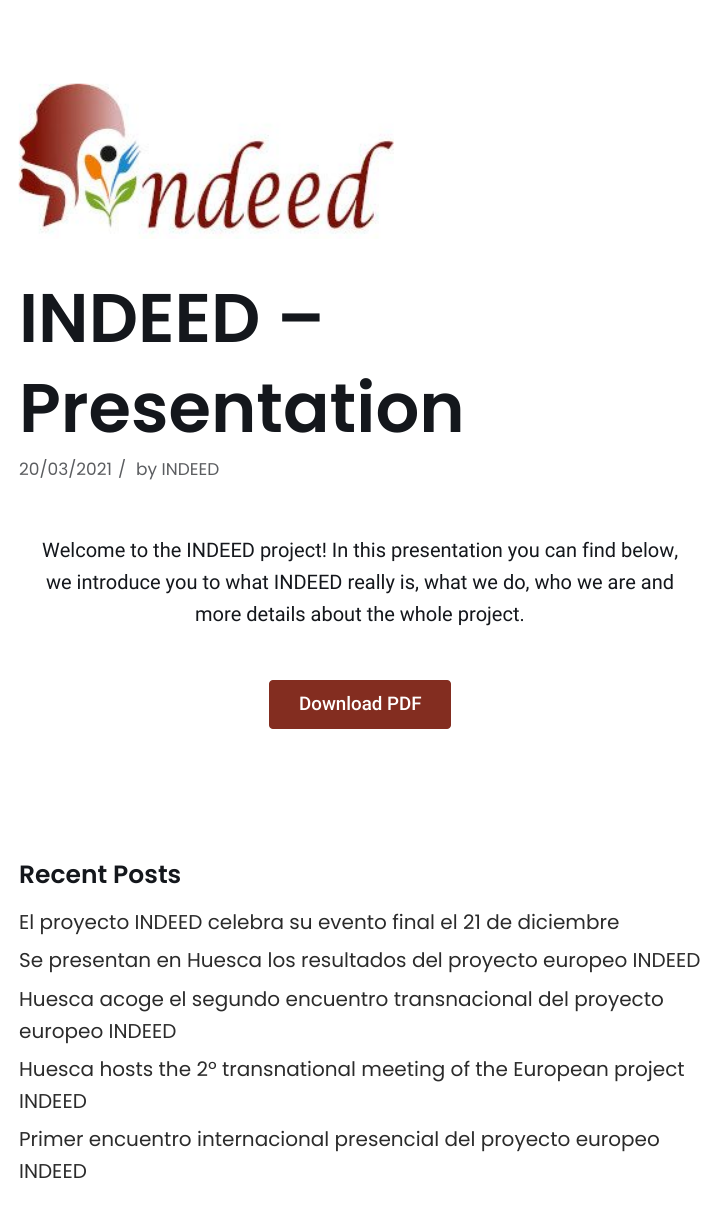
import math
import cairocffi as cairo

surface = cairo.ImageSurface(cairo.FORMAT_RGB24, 720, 1227)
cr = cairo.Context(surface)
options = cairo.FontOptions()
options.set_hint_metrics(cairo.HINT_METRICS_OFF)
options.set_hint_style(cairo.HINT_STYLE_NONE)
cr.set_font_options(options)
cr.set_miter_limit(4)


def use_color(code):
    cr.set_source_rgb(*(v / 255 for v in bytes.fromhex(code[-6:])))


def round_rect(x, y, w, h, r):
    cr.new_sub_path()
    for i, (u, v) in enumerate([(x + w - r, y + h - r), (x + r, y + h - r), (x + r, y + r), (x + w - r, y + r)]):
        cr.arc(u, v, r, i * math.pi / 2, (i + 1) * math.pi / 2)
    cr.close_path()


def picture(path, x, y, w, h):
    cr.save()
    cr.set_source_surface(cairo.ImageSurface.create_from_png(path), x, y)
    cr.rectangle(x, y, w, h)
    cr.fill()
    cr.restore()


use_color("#ffffff")
cr.paint()
picture("img1.png", 18, 83, 376, 156)
cr.select_font_face("Poppins SemiBold")
cr.set_font_size(68.75)
use_color("#14171c")
cr.move_to(19, 342)
cr.show_text("INDEED –")
cr.move_to(19, 432)
cr.show_text("Presentation")
cr.select_font_face("Poppins")
cr.set_font_size(17)
use_color("#5b5d60")
cr.move_to(19, 475)
cr.show_text("20/03/2021")
cr.move_to(118, 475)
cr.show_text("/")
cr.move_to(136, 475)
cr.show_text("by INDEED")
cr.select_font_face("Roboto")
cr.set_font_size(20)
use_color("#14171c")
cr.move_to(42, 557)
cr.show_text("Welcome to the INDEED project! In this presentation you can find below,")
cr.move_to(46, 589)
cr.show_text("we introduce you to what INDEED really is, what we do, who we are and")
cr.move_to(195, 621)
cr.show_text("more details about the whole project.")
use_color("#832d20")
round_rect(269, 680, 182, 49, 4)
cr.fill()
cr.select_font_face("Roboto Medium")
cr.set_font_size(18.75)
use_color("#ffffff")
cr.move_to(299, 710)
cr.show_text("Download PDF")
cr.select_font_face("Poppins SemiBold")
cr.set_font_size(25)
use_color("#14171c")
cr.move_to(19, 883)
cr.show_text("Recent Posts")
cr.select_font_face("Poppins")
cr.set_font_size(20)
use_color("#2b2b2b")
cr.move_to(19, 929)
cr.show_text("El proyecto INDEED celebra su evento final el 21 de diciembre")
cr.move_to(19, 967)
cr.show_text("Se presentan en Huesca los resultados del proyecto europeo INDEED")
cr.move_to(19, 1006)
cr.show_text("Huesca acoge el segundo encuentro transnacional del proyecto")
cr.move_to(19, 1038)
cr.show_text("europeo INDEED")
cr.move_to(19, 1076)
cr.show_text("Huesca hosts the 2º transnational meeting of the European project")
cr.move_to(19, 1108)
cr.show_text("INDEED")
cr.move_to(19, 1146)
cr.show_text("Primer encuentro internacional presencial del proyecto europeo")
cr.move_to(19, 1178)
cr.show_text("INDEED")
surface.write_to_png("result.png")
